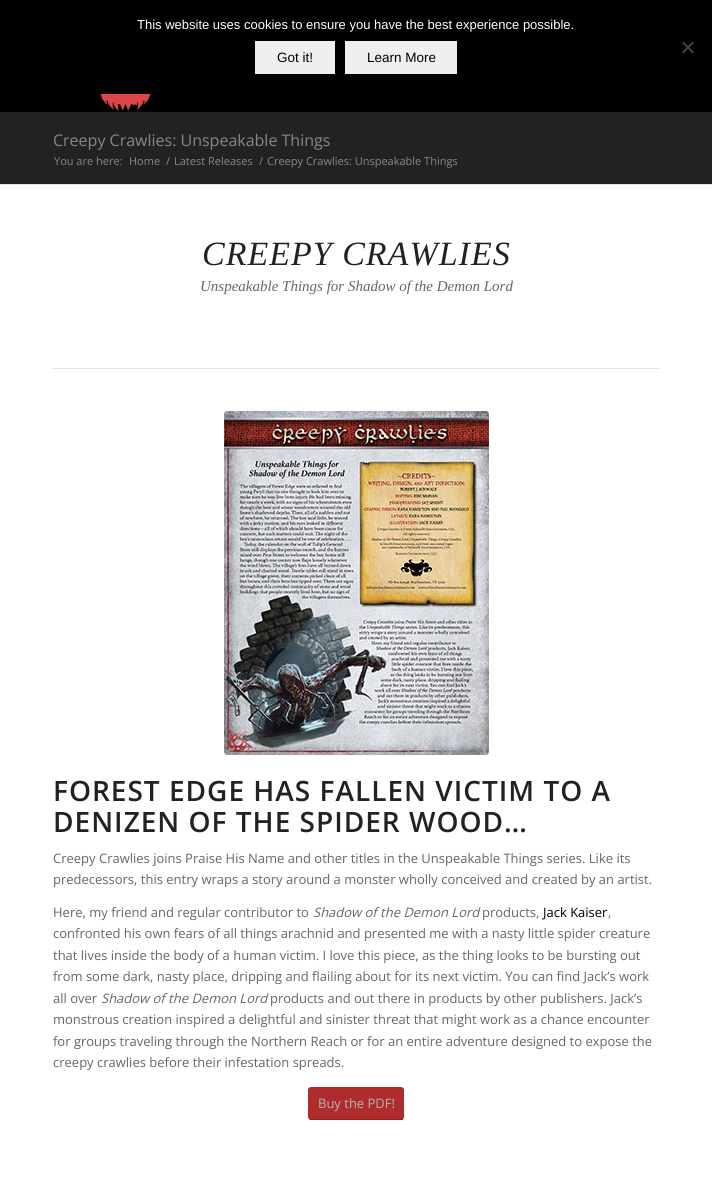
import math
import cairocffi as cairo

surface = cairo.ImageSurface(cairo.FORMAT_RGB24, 712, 1183)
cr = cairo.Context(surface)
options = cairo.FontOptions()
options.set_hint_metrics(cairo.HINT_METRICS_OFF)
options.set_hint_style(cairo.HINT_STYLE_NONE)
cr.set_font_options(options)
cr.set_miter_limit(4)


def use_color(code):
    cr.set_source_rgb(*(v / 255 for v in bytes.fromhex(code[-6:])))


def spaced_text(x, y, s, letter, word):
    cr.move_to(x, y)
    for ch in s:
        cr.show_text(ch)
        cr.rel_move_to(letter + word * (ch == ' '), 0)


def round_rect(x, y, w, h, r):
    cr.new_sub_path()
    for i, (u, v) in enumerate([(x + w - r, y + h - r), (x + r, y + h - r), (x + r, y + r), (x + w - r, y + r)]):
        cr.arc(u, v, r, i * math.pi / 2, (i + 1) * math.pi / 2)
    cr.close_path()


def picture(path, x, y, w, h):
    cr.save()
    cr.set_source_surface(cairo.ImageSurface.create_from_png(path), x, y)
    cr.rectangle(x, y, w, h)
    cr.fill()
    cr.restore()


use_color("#222222")
cr.paint()
use_color("#000000")
cr.rectangle(0, 0, 712, 112)
cr.fill()
cr.select_font_face("Liberation Sans")
cr.set_font_size(13)
use_color("#ffffff")
cr.move_to(137, 29)
cr.show_text("This website uses cookies to ensure you have the best experience possible.")
use_color("#404040")
cr.new_path()
cr.move_to(692.5, 41.5)
cr.line_to(694, 43)
cr.line_to(683.5, 53.5)
cr.line_to(682, 52)
cr.close_path()
cr.fill()
cr.new_path()
cr.move_to(682, 43)
cr.line_to(683.5, 41.5)
cr.line_to(694, 52)
cr.line_to(692.5, 53.5)
cr.close_path()
cr.fill()
use_color("#efefef")
cr.rectangle(255, 41, 80, 33)
cr.fill()
cr.set_font_size(13.5)
use_color("#000000")
cr.move_to(277, 62)
cr.show_text("Got it!")
use_color("#efefef")
cr.rectangle(345, 41, 112, 33)
cr.fill()
use_color("#000000")
cr.move_to(367, 62)
cr.show_text("Learn More")
picture("img1.png", 100, 94, 51, 17)
cr.select_font_face("Open Sans")
cr.set_font_size(16)
use_color("#888888")
cr.move_to(53, 146)
cr.show_text("Creepy Crawlies: Unspeakable Things")
cr.set_font_size(11)
cr.move_to(54, 165)
cr.show_text("You are here:")
cr.move_to(129, 165)
cr.show_text("Home")
cr.move_to(166, 165)
cr.show_text("/")
cr.move_to(174, 165)
cr.show_text("Latest Releases")
cr.move_to(259, 165)
cr.show_text("/")
cr.move_to(267, 165)
cr.show_text("Creepy Crawlies: Unspeakable Things")
use_color("#ffffff")
cr.rectangle(0, 185, 712, 998)
cr.fill()
use_color("#e1e1e1")
cr.rectangle(0, 184, 712, 1)
cr.fill()
cr.select_font_face("Liberation Serif", cairo.FONT_SLANT_ITALIC)
cr.set_font_size(34)
use_color("#222222")
spaced_text(202, 265, "CREEPY CRAWLIES", 1, 0)
cr.set_font_size(15)
use_color("#666666")
cr.move_to(200, 291)
cr.show_text("Unspeakable Things for Shadow of the Demon Lord")
use_color("#e1e1e1")
cr.rectangle(53, 368, 606, 1)
cr.fill()
picture("img2.png", 224, 411, 265, 344)
cr.select_font_face("Open Sans SemiBold")
cr.set_font_size(28)
use_color("#222222")
spaced_text(53, 801, "FOREST EDGE HAS FALLEN VICTIM TO A", 1, 0)
spaced_text(53, 832, "DENIZEN OF THE SPIDER WOOD…", 1, 0)
cr.select_font_face("Open Sans")
cr.set_font_size(13)
use_color("#666666")
cr.move_to(53, 863)
cr.show_text("Creepy Crawlies joins Praise His Name and other titles in the Unspeakable Things series. Like its")
cr.move_to(53, 884)
cr.show_text("predecessors, this entry wraps a story around a monster wholly conceived and created by an artist.")
cr.move_to(53, 917)
cr.show_text("Here, my friend and regular contributor to")
cr.select_font_face("Open Sans", cairo.FONT_SLANT_ITALIC)
cr.move_to(313, 917)
cr.show_text("Shadow of the Demon Lord")
cr.select_font_face("Open Sans")
cr.move_to(482, 917)
cr.show_text("products,")
use_color("#000000")
cr.move_to(543, 917)
cr.show_text("Jack Kaiser")
use_color("#666666")
cr.move_to(608, 917)
cr.show_text(",")
cr.move_to(53, 938)
cr.show_text("confronted his own fears of all things arachnid and presented me with a nasty little spider creature")
cr.move_to(53, 960)
cr.show_text("that lives inside the body of a human victim. I love this piece, as the thing looks to be bursting out")
cr.move_to(53, 981)
cr.show_text("from some dark, nasty place, dripping and flailing about for its next victim. You can find Jack’s work")
cr.move_to(53, 1003)
cr.show_text("all over")
cr.select_font_face("Open Sans", cairo.FONT_SLANT_ITALIC)
cr.move_to(101, 1003)
cr.show_text("Shadow of the Demon Lord")
cr.select_font_face("Open Sans")
cr.move_to(270, 1003)
cr.show_text("products and out there in products by other publishers. Jack’s")
cr.move_to(53, 1024)
cr.show_text("monstrous creation inspired a delightful and sinister threat that might work as a chance encounter")
cr.move_to(53, 1046)
cr.show_text("for groups traveling through the Northern Reach or for an entire adventure designed to expose the")
cr.move_to(53, 1067)
cr.show_text("creepy crawlies before their infestation spreads.")
use_color("#b02b2c")
round_rect(308, 1087, 96, 33, 3)
cr.fill()
use_color("#8b2121")
cr.rectangle(310, 1119, 93, 1)
cr.fill()
use_color("#b4b4b4")
cr.move_to(318, 1108)
cr.show_text("Buy the PDF!")
surface.write_to_png("result.png")
